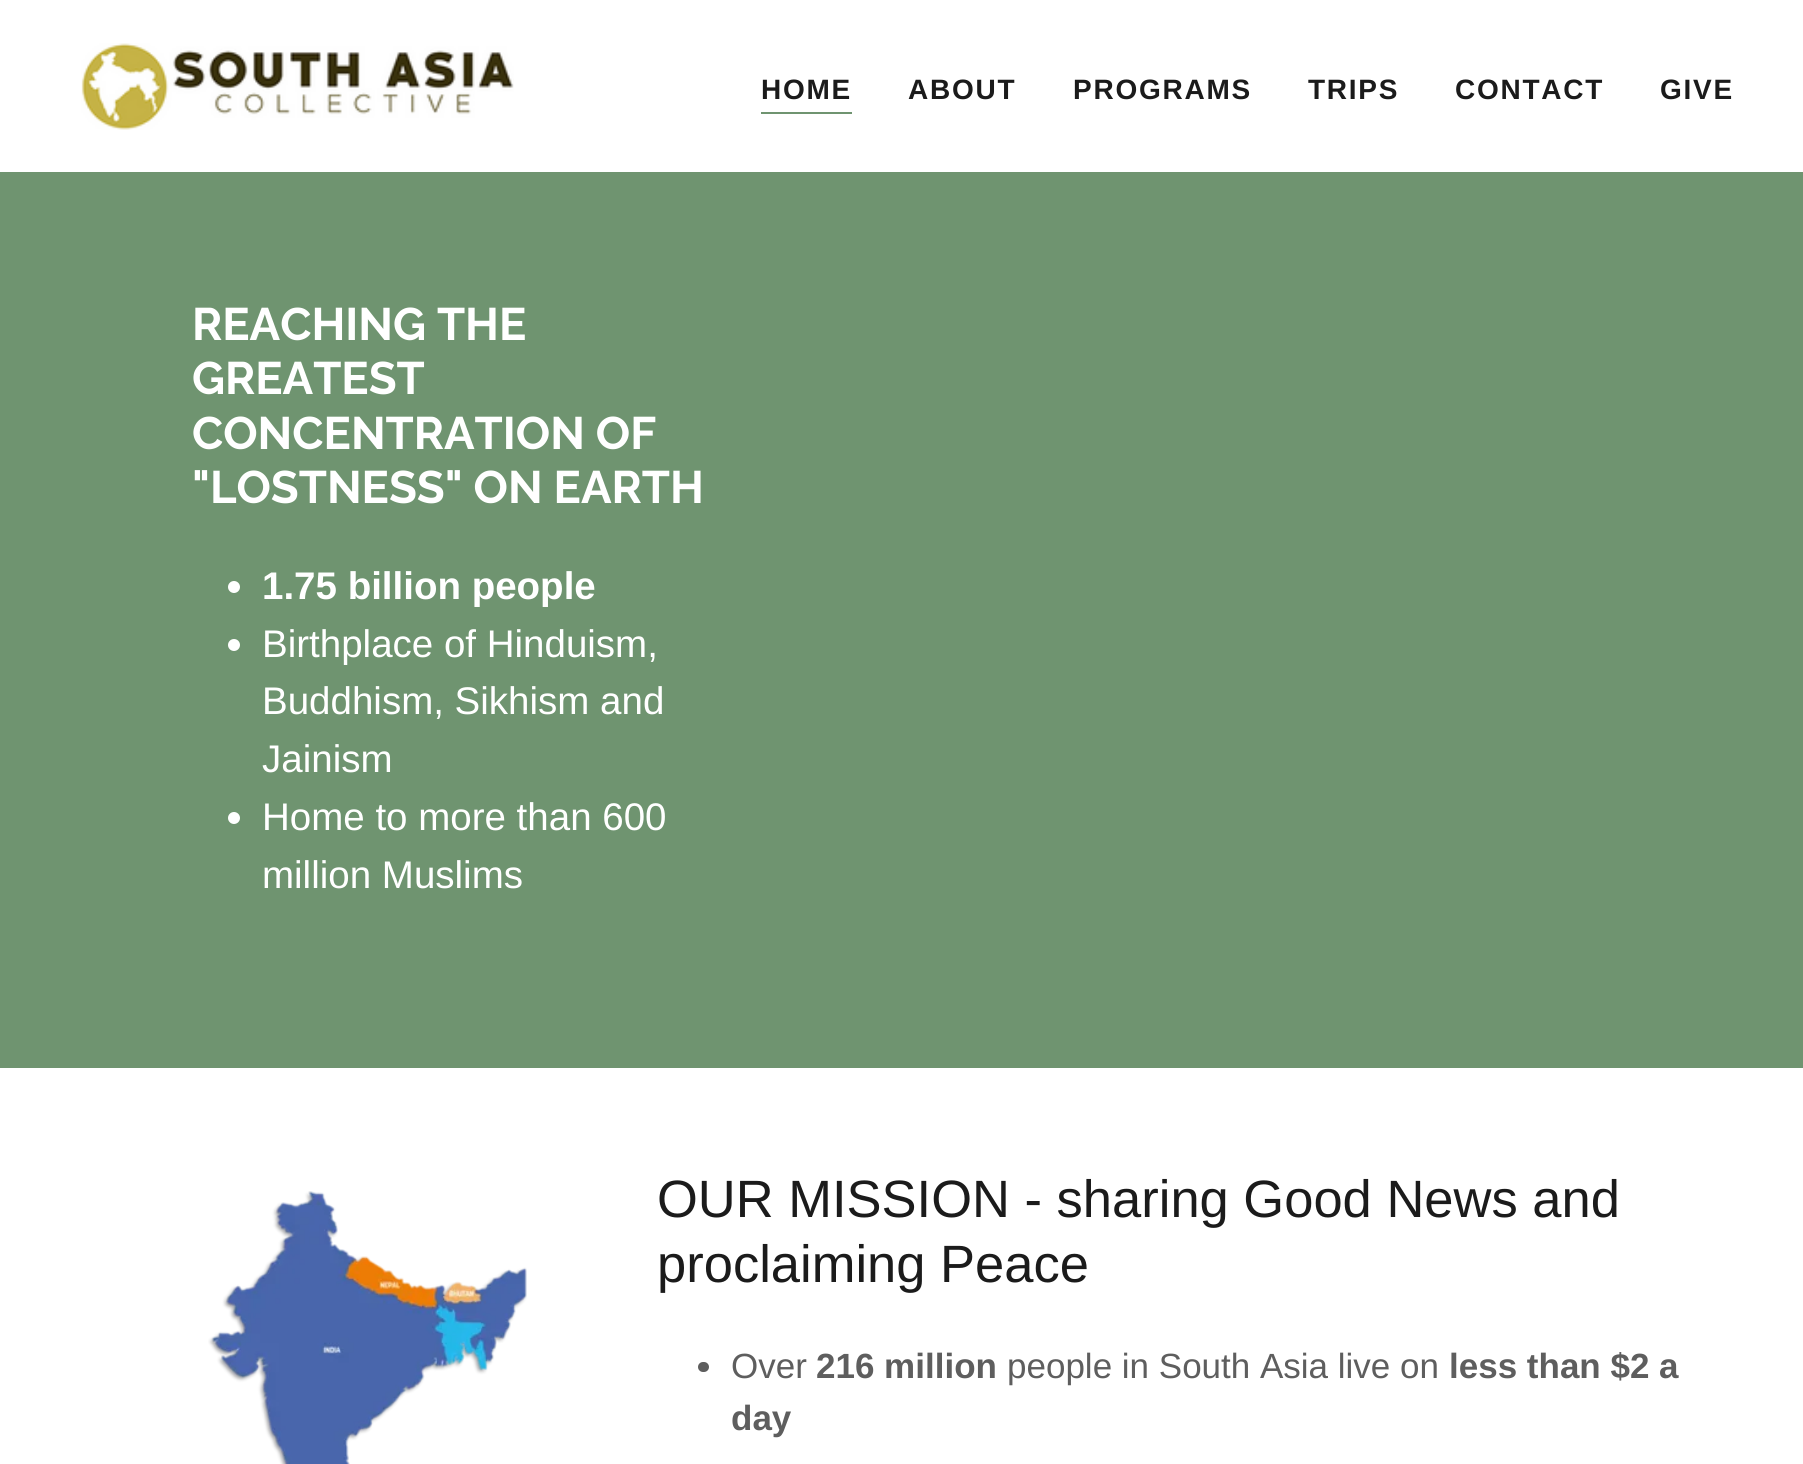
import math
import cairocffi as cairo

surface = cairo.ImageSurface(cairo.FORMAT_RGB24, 1803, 1464)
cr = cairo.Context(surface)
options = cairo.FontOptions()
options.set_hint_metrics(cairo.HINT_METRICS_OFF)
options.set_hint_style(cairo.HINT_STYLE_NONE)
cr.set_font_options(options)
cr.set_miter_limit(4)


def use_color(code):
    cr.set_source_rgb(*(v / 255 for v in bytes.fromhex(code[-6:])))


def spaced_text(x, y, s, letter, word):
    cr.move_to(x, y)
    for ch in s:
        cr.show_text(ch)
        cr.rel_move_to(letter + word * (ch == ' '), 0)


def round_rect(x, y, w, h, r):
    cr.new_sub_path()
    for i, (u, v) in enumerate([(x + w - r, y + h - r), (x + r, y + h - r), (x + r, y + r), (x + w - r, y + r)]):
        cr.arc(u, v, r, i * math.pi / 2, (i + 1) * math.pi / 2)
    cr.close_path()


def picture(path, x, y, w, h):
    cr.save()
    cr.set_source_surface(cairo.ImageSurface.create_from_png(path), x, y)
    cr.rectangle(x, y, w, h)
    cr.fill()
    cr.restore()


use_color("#6f9470")
cr.paint()
use_color("#ffffff")
cr.rectangle(0, 0, 1803, 172)
cr.fill()
picture("img1.png", 81, 43, 433, 87)
use_color("#6f9470")
cr.rectangle(761, 112, 91, 2)
cr.fill()
cr.select_font_face("Liberation Sans", cairo.FONT_SLANT_NORMAL, cairo.FONT_WEIGHT_BOLD)
cr.set_font_size(28)
use_color("#1b1b1b")
spaced_text(761, 99, "HOME", 1.75, 0)
spaced_text(908, 99, "ABOUT", 1.75, 0)
spaced_text(1073, 99, "PROGRAMS", 1.75, 0)
spaced_text(1308, 99, "TRIPS", 1.75, 0)
spaced_text(1455, 99, "CONTACT", 1.75, 0)
spaced_text(1660, 99, "GIVE", 1.75, 0)
cr.select_font_face("Raleway", cairo.FONT_SLANT_NORMAL, cairo.FONT_WEIGHT_BOLD)
cr.set_font_size(45.5)
use_color("#ffffff")
cr.move_to(192, 340)
cr.show_text("REACHING THE")
cr.move_to(192, 394)
cr.show_text("GREATEST")
cr.move_to(192, 449)
cr.show_text("CONCENTRATION OF")
cr.move_to(192, 503)
cr.show_text("\"LOSTNESS\" ON EARTH")
cr.new_path()
cr.arc(234, 587, 6, 0, 2 * math.pi)
cr.fill()
cr.select_font_face("Liberation Sans", cairo.FONT_SLANT_NORMAL, cairo.FONT_WEIGHT_BOLD)
cr.set_font_size(38.5)
cr.move_to(262, 599)
cr.show_text("1.75 billion people")
cr.new_path()
cr.arc(234, 645, 6, 0, 2 * math.pi)
cr.fill()
cr.select_font_face("Liberation Sans")
cr.move_to(262, 657)
cr.show_text("Birthplace of Hinduism,")
cr.move_to(262, 714)
cr.show_text("Buddhism, Sikhism and")
cr.move_to(262, 772)
cr.show_text("Jainism")
cr.new_path()
cr.arc(234, 818, 6, 0, 2 * math.pi)
cr.fill()
cr.move_to(262, 830)
cr.show_text("Home to more than 600")
cr.move_to(262, 888)
cr.show_text("million Muslims")
cr.rectangle(0, 1068, 1803, 396)
cr.fill()
picture("img2.png", 208, 1191, 319, 273)
cr.set_font_size(52.5)
use_color("#1b1b1b")
cr.move_to(657, 1217)
cr.show_text("OUR MISSION - sharing Good News and")
cr.move_to(657, 1282)
cr.show_text("proclaiming Peace")
use_color("#5e5e5e")
round_rect(698, 1362, 11, 10, 5)
cr.fill()
cr.set_font_size(35)
cr.move_to(731, 1378)
cr.show_text("Over")
cr.select_font_face("Liberation Sans", cairo.FONT_SLANT_NORMAL, cairo.FONT_WEIGHT_BOLD)
cr.move_to(816, 1378)
cr.show_text("216 million")
cr.select_font_face("Liberation Sans")
cr.move_to(1007, 1378)
cr.show_text("people in South Asia live on")
cr.select_font_face("Liberation Sans", cairo.FONT_SLANT_NORMAL, cairo.FONT_WEIGHT_BOLD)
cr.move_to(1449, 1378)
cr.show_text("less than $2 a")
cr.move_to(731, 1430)
cr.show_text("day")
surface.write_to_png("result.png")
